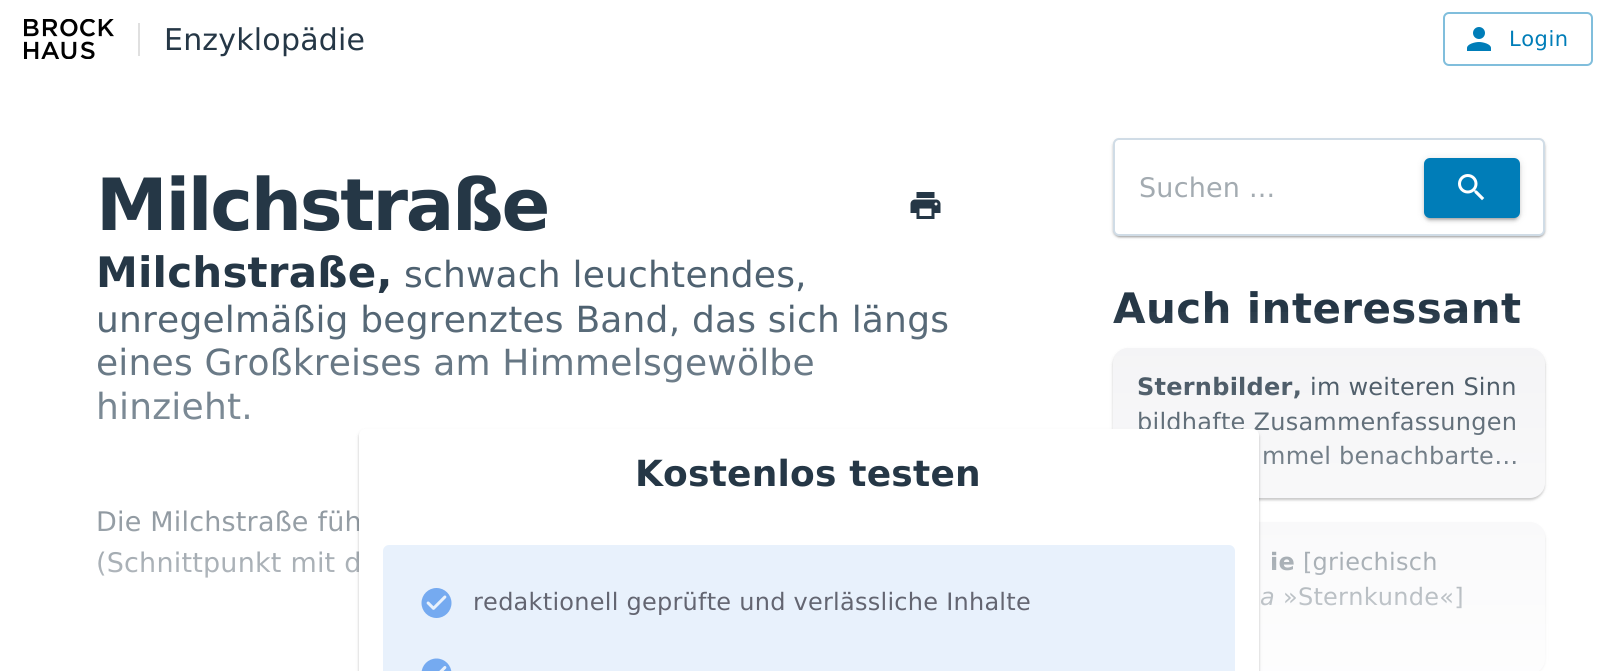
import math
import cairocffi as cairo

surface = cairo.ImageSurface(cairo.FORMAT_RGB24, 1617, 671)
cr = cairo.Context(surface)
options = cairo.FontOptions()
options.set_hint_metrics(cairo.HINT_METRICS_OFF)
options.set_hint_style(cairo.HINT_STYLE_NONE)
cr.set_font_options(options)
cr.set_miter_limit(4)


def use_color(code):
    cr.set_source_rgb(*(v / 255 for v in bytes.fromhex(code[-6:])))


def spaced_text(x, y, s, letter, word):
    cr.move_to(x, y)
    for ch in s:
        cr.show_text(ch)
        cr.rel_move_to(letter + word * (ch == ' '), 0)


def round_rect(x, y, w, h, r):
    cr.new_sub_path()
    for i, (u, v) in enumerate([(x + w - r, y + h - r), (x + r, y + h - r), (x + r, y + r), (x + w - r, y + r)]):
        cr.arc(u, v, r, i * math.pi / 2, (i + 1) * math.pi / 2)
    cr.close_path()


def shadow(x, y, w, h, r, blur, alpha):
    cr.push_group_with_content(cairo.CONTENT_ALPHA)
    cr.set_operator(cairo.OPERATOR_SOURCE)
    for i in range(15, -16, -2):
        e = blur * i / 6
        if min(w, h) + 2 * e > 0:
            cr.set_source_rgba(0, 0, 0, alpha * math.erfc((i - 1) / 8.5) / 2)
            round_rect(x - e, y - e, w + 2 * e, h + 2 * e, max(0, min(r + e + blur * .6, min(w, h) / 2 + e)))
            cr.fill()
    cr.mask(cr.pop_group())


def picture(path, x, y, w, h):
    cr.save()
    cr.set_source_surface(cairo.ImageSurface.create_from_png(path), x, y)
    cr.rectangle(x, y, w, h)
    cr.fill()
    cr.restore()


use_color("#ffffff")
cr.paint()
picture("img1.png", 24, 19, 90, 40)
use_color("#e0e0e0")
cr.rectangle(138, 23, 2, 33)
cr.fill()
cr.select_font_face("DejaVu Sans")
cr.set_font_size(30)
use_color("#253746")
spaced_text(164, 50, "Enzyklopädie", 0.2, 0)
round_rect(1444, 13, 148, 52, 5)
use_color("#80bedc")
cr.stroke()
picture("img2.png", 1467, 27, 24, 24)
cr.set_font_size(21)
use_color("#007db8")
spaced_text(1509, 46, "Login", 0.5, 0)
cr.select_font_face("DejaVu Sans", cairo.FONT_SLANT_NORMAL, cairo.FONT_WEIGHT_BOLD)
cr.set_font_size(72)
use_color("#253746")
spaced_text(96, 230, "Milchstraße", -2.25, 0)
picture("img3.png", 910, 192, 31, 27)
cr.set_font_size(42)
spaced_text(96, 287, "Milchstraße,", 0.2, 0)
cr.select_font_face("DejaVu Sans")
cr.set_font_size(36)
use_color("#4e6170")
spaced_text(404, 287, "schwach leuchtendes,", 0.2, 0)
spaced_text(96, 332, "unregelmäßig begrenztes Band, das sich längs", 0.2, 0)
spaced_text(96, 375, "eines Großkreises am Himmelsgewölbe", 0.2, 0)
spaced_text(96, 419, "hinzieht.", 0.2, 0)
cr.set_font_size(27)
use_color("#253746")
spaced_text(96, 531, "Die Milchstraße füh", 0.2, 0)
spaced_text(96, 572, "(Schnittpunkt mit d", 0.2, 0)
use_color("#000000")
shadow(1113, 140, 432, 97, 6, 2, 0.12)
shadow(1113, 140, 432, 97, 6, 1, 0.14)
shadow(1115, 143, 429, 94, 5, 1, 0.2)
use_color("#ffffff")
round_rect(1114, 139, 430, 96, 5)
cr.fill_preserve()
use_color("#d0dce6")
cr.stroke()
use_color("#a3abb1")
spaced_text(1139, 197, "Suchen ...", 0.2, 0)
use_color("#000000")
shadow(1424, 159, 96, 60, 6, 4, 0.12)
shadow(1424, 161, 96, 60, 6, 1.5, 0.14)
shadow(1427, 165, 90, 54, 3, 1, 0.2)
use_color("#007db8")
round_rect(1424, 158, 96, 60, 6)
cr.fill()
picture("img4.png", 1458, 174, 27, 27)
cr.select_font_face("DejaVu Sans", cairo.FONT_SLANT_NORMAL, cairo.FONT_WEIGHT_BOLD)
cr.set_font_size(42)
use_color("#253746")
spaced_text(1113, 323, "Auch interessant", 0.4, 0)
use_color("#000000")
shadow(1113, 350, 432, 150, 15, 2, 0.12)
shadow(1113, 350, 432, 150, 15, 1, 0.14)
shadow(1115, 353, 429, 147, 14, 1, 0.2)
use_color("#f3f3f5")
round_rect(1113, 348, 432, 150, 15)
cr.fill()
cr.set_font_size(24)
use_color("#253746")
spaced_text(1137, 395, "Sternbilder,", 0.25, 0)
cr.select_font_face("DejaVu Sans")
spaced_text(1310, 395, "im weiteren Sinn", 0.25, 0)
spaced_text(1137, 430, "bildhafte Zusammenfassungen", 0.25, 0)
spaced_text(1262, 464, "mmel benachbarte…", 0.25, 0)
use_color("#000000")
shadow(1113, 524, 432, 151, 15, 2, 0.12)
shadow(1113, 524, 432, 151, 15, 1, 0.14)
shadow(1115, 527, 429, 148, 14, 1, 0.2)
use_color("#f3f3f5")
round_rect(1113, 522, 432, 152, 15)
cr.fill()
cr.select_font_face("DejaVu Sans", cairo.FONT_SLANT_NORMAL, cairo.FONT_WEIGHT_BOLD)
use_color("#253746")
spaced_text(1270, 570, "ie", 0.25, 0)
cr.select_font_face("DejaVu Sans")
spaced_text(1303, 570, "[griechisch", 0.25, 0)
cr.select_font_face("DejaVu Sans", cairo.FONT_SLANT_ITALIC)
spaced_text(1260, 605, "a", 0.25, 0)
cr.select_font_face("DejaVu Sans")
spaced_text(1283, 605, "»Sternkunde«]", 0.25, 0)
gradient = cairo.LinearGradient(809, 303, 809, 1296)
gradient.add_color_stop_rgba(0, 1, 1, 1, 0)
gradient.add_color_stop_rgba(0.43, 1, 1, 1, 1)
cr.set_source(gradient)
cr.rectangle(98, 312, 1450, 359)
cr.fill()
use_color("#000000")
shadow(359, 431, 900, 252, 6, 2, 0.12)
shadow(359, 431, 900, 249, 6, 1, 0.14)
use_color("#ffffff")
round_rect(359, 429, 900, 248, 6)
cr.fill()
cr.select_font_face("DejaVu Sans", cairo.FONT_SLANT_NORMAL, cairo.FONT_WEIGHT_BOLD)
cr.set_font_size(36)
use_color("#253746")
spaced_text(635, 486, "Kostenlos testen", 0.2, 0)
use_color("#e8f1fc")
round_rect(383, 545, 852, 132, 6)
cr.fill()
picture("img5.png", 421, 588, 31, 30)
cr.select_font_face("DejaVu Sans")
cr.set_font_size(24)
use_color("#636571")
spaced_text(473, 610, "redaktionell geprüfte und verlässliche Inhalte", 0.25, 0)
picture("img6.png", 421, 658, 31, 13)
surface.write_to_png("result.png")
